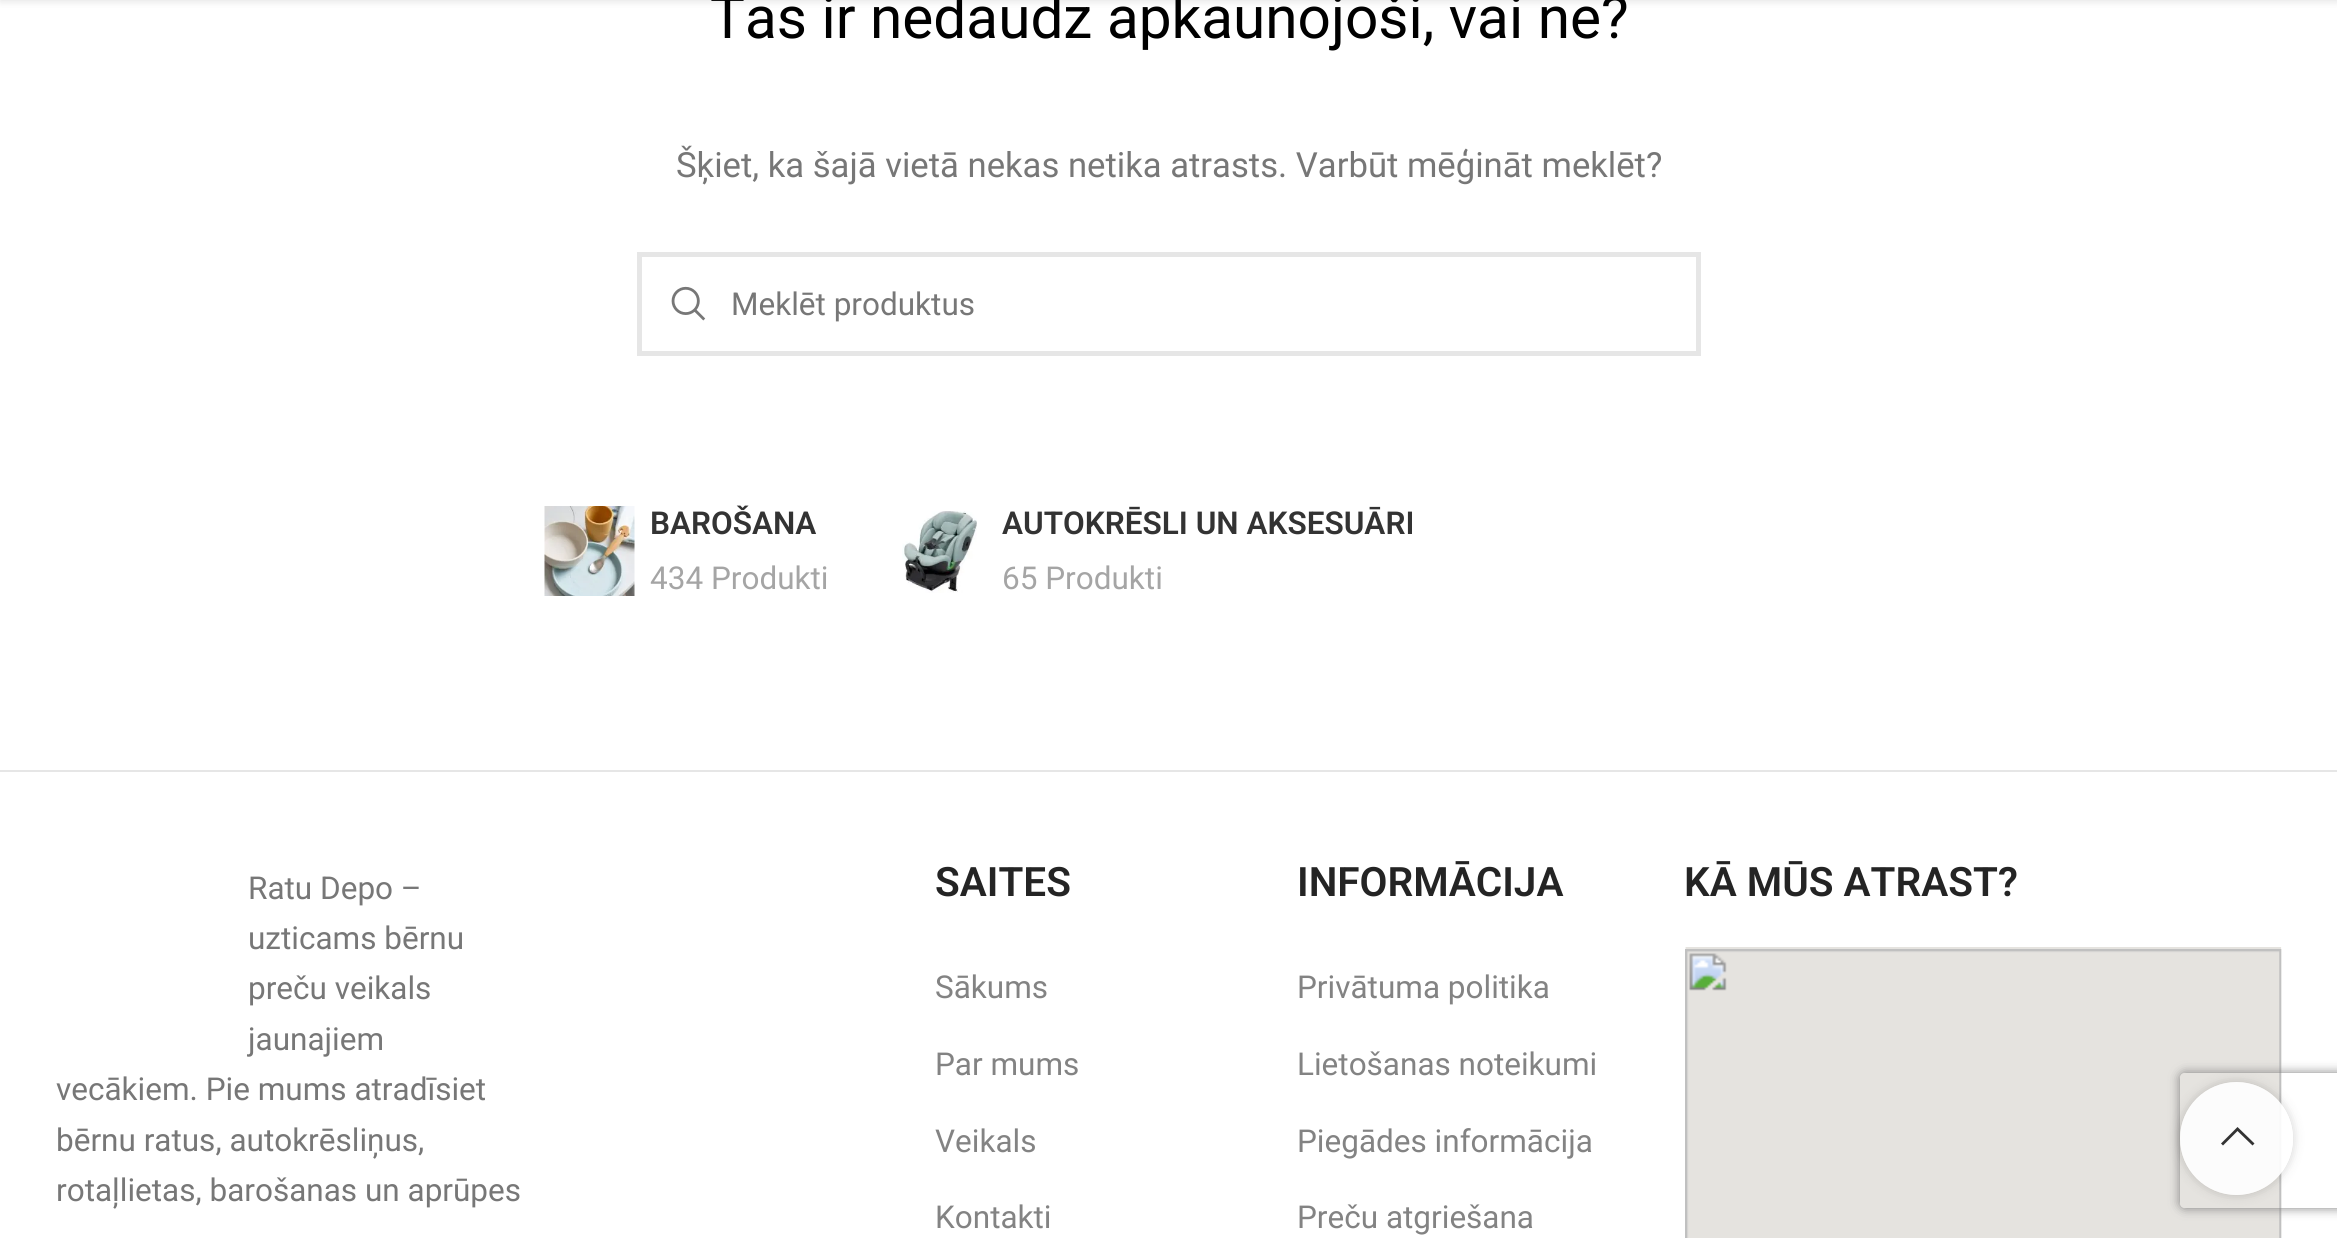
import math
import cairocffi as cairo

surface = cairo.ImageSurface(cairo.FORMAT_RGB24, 2337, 1238)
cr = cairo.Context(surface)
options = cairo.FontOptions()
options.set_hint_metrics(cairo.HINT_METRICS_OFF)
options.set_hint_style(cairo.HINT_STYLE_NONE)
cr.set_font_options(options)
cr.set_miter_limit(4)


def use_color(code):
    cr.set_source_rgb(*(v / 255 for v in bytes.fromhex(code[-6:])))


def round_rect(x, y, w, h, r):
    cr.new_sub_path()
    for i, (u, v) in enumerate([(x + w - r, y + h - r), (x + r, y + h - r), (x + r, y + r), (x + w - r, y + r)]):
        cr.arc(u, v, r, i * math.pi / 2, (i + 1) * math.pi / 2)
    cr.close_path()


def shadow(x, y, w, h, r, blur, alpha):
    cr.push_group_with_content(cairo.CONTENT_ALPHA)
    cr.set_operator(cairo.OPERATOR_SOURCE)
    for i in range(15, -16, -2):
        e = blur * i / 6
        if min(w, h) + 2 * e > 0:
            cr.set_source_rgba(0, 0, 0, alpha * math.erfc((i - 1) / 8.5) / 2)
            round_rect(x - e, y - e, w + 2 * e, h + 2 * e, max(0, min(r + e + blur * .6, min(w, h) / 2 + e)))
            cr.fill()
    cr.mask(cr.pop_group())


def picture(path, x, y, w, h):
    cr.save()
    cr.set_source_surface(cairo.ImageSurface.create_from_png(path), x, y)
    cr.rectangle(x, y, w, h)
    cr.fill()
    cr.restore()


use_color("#ffffff")
cr.paint()
use_color("#000000")
shadow(0, -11, 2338, 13, 0, 3.5, 0.1)
cr.select_font_face("Roboto")
cr.set_font_size(58.5)
use_color("#000000")
cr.move_to(710, 38)
cr.show_text("Tas ir nedaudz apkaunojoši, vai ne?")
cr.set_font_size(34.65)
use_color("#777777")
cr.move_to(676, 177)
cr.show_text("Šķiet, ka šajā vietā nekas netika atrasts. Varbūt mēģināt meklēt?")
cr.rectangle(639.5, 254.5, 1059, 99)
use_color("#e6e6e6")
cr.set_line_width(5)
cr.stroke()
picture("img1.png", 671, 286, 35, 35)
cr.set_font_size(31.5)
use_color("#777777")
cr.move_to(731, 315)
cr.show_text("Meklēt produktus")
picture("img2.png", 544, 506, 91, 90)
cr.select_font_face("Roboto SemiBold")
use_color("#333333")
cr.move_to(650, 534)
cr.show_text("BAROŠANA")
cr.select_font_face("Roboto")
use_color("#a5a5a5")
cr.move_to(650, 589)
cr.show_text("434 Produkti")
picture("img3.png", 902, 511, 75, 82)
cr.select_font_face("Roboto SemiBold")
use_color("#333333")
cr.move_to(1002, 534)
cr.show_text("AUTOKRĒSLI UN AKSESUĀRI")
cr.select_font_face("Roboto")
use_color("#a5a5a5")
cr.move_to(1002, 589)
cr.show_text("65 Produkti")
use_color("#e6e6e6")
cr.rectangle(0, 770, 2337, 2)
cr.fill()
use_color("#777777")
cr.move_to(248, 899)
cr.show_text("Ratu Depo –")
cr.move_to(248, 949)
cr.show_text("uzticams bērnu")
cr.move_to(248, 999)
cr.show_text("preču veikals")
cr.move_to(248, 1050)
cr.show_text("jaunajiem")
cr.move_to(56, 1100)
cr.show_text("vecākiem. Pie mums atradīsiet")
cr.move_to(56, 1151)
cr.show_text("bērnu ratus, autokrēsliņus,")
cr.move_to(56, 1201)
cr.show_text("rotaļlietas, barošanas un aprūpes")
cr.select_font_face("Roboto SemiBold")
cr.set_font_size(40.5)
use_color("#242424")
cr.move_to(935, 896)
cr.show_text("SAITES")
cr.select_font_face("Roboto")
cr.set_font_size(31.5)
use_color("#838383")
cr.move_to(935, 998)
cr.show_text("Sākums")
cr.move_to(935, 1075)
cr.show_text("Par mums")
cr.move_to(935, 1152)
cr.show_text("Veikals")
cr.move_to(935, 1228)
cr.show_text("Kontakti")
cr.select_font_face("Roboto SemiBold")
cr.set_font_size(40.5)
use_color("#242424")
cr.move_to(1297, 896)
cr.show_text("INFORMĀCIJA")
cr.select_font_face("Roboto")
cr.set_font_size(31.5)
use_color("#838383")
cr.move_to(1297, 998)
cr.show_text("Privātuma politika")
cr.move_to(1297, 1075)
cr.show_text("Lietošanas noteikumi")
cr.move_to(1297, 1152)
cr.show_text("Piegādes informācija")
cr.move_to(1297, 1228)
cr.show_text("Preču atgriešana")
cr.select_font_face("Roboto SemiBold")
cr.set_font_size(40.5)
use_color("#242424")
cr.move_to(1684, 896)
cr.show_text("KĀ MŪS ATRAST?")
picture("img4.png", 1685, 947, 597, 291)
cr.save()
cr.set_fill_rule(cairo.FILL_RULE_EVEN_ODD)
cr.new_path()
cr.move_to(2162, 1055)
cr.line_to(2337, 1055)
cr.line_to(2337, 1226)
cr.line_to(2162, 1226)
cr.close_path()
cr.move_to(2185, 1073)
cr.line_to(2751, 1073)
cr.curve_to(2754, 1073, 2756, 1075, 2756, 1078)
cr.line_to(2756, 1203)
cr.curve_to(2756, 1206, 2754, 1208, 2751, 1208)
cr.line_to(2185, 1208)
cr.curve_to(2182, 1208, 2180, 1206, 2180, 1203)
cr.line_to(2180, 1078)
cr.curve_to(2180, 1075, 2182, 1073, 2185, 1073)
cr.close_path()
cr.clip()
use_color("#808080")
shadow(2180, 1073, 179, 135, 5, 5.5, 1)
cr.restore()
cr.save()
cr.set_fill_rule(cairo.FILL_RULE_EVEN_ODD)
cr.new_path()
cr.move_to(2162, 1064)
cr.line_to(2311, 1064)
cr.line_to(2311, 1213)
cr.line_to(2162, 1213)
cr.close_path()
cr.move_to(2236.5, 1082)
cr.curve_to(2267.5, 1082, 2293, 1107.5, 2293, 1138.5)
cr.curve_to(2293, 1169.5, 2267.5, 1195, 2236.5, 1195)
cr.curve_to(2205.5, 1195, 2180, 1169.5, 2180, 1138.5)
cr.curve_to(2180, 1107.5, 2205.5, 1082, 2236.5, 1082)
cr.close_path()
cr.clip()
use_color("#000000")
shadow(2180, 1082, 113, 113, 56.5, 5.5, 0.17)
cr.restore()
cr.set_source_rgba(1, 1, 1, 0.9)
cr.arc(2236.5, 1138.5, 56.5, 0, 2 * math.pi)
cr.fill()
use_color("#333333")
cr.new_path()
cr.move_to(2252.5, 1145.5)
cr.line_to(2254.5, 1143.5)
cr.line_to(2237.5, 1127)
cr.line_to(2221, 1143.5)
cr.line_to(2223, 1145.5)
cr.line_to(2237.5, 1131)
cr.close_path()
cr.fill()
surface.write_to_png("result.png")
